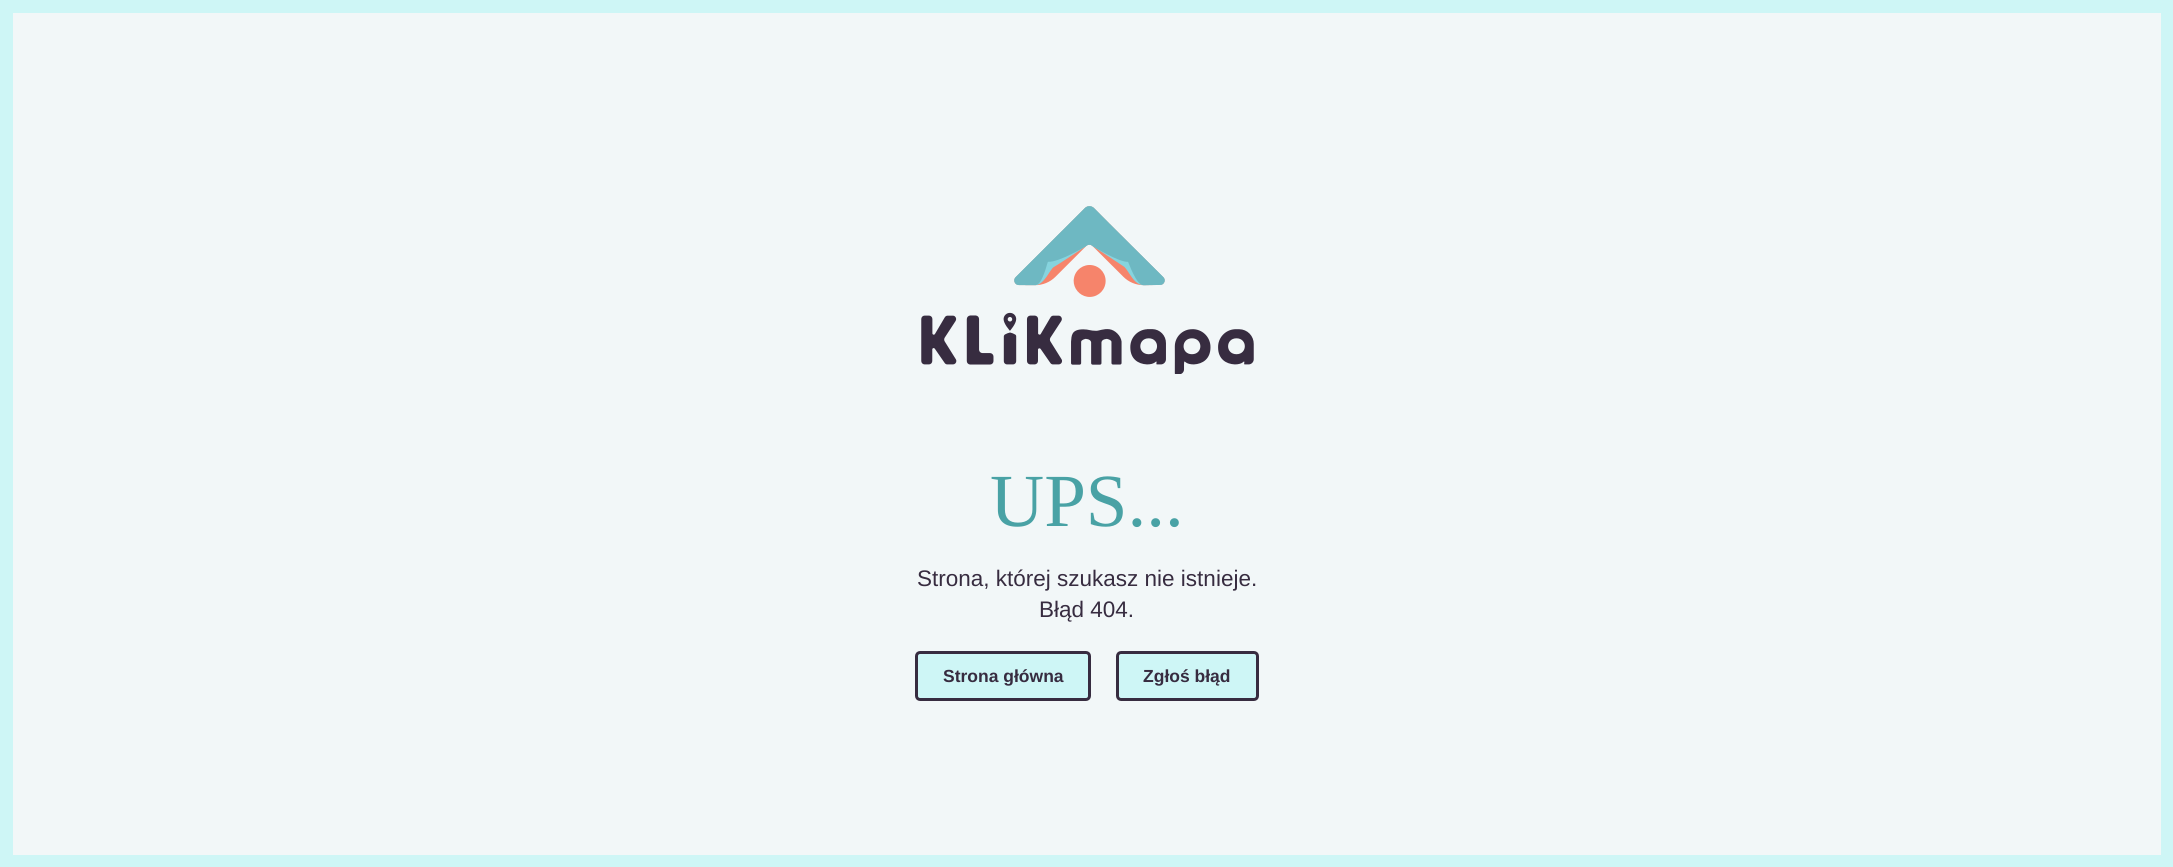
import math
import cairocffi as cairo

surface = cairo.ImageSurface(cairo.FORMAT_RGB24, 2173, 867)
cr = cairo.Context(surface)
options = cairo.FontOptions()
options.set_hint_metrics(cairo.HINT_METRICS_OFF)
options.set_hint_style(cairo.HINT_STYLE_NONE)
cr.set_font_options(options)
cr.set_miter_limit(4)


def use_color(code):
    cr.set_source_rgb(*(v / 255 for v in bytes.fromhex(code[-6:])))


def round_rect(x, y, w, h, r):
    cr.new_sub_path()
    for i, (u, v) in enumerate([(x + w - r, y + h - r), (x + r, y + h - r), (x + r, y + r), (x + w - r, y + r)]):
        cr.arc(u, v, r, i * math.pi / 2, (i + 1) * math.pi / 2)
    cr.close_path()


def picture(path, x, y, w, h):
    cr.save()
    cr.set_source_surface(cairo.ImageSurface.create_from_png(path), x, y)
    cr.rectangle(x, y, w, h)
    cr.fill()
    cr.restore()


use_color("#f2f7f8")
cr.paint()
cr.rectangle(6.5, 6.5, 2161, 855)
use_color("#cef6f6")
cr.set_line_width(13)
cr.stroke()
picture("img1.png", 921, 206, 333, 168)
cr.select_font_face("Liberation Serif")
cr.set_font_size(75)
use_color("#49a2a5")
cr.move_to(990, 526)
cr.show_text("UPS...")
cr.select_font_face("Liberation Sans")
cr.set_font_size(22.5)
use_color("#372c40")
cr.move_to(917, 586)
cr.show_text("Strona, której szukasz nie istnieje.")
cr.move_to(1039, 617)
cr.show_text("Błąd 404.")
use_color("#cef6f6")
round_rect(916.5, 652.5, 173, 47, 3.5)
cr.fill_preserve()
use_color("#372c40")
cr.set_line_width(3)
cr.stroke()
cr.select_font_face("Liberation Sans", cairo.FONT_SLANT_NORMAL, cairo.FONT_WEIGHT_BOLD)
cr.set_font_size(17.5)
cr.move_to(943, 682)
cr.show_text("Strona główna")
use_color("#cef6f6")
round_rect(1117.5, 652.5, 140, 47, 3.5)
cr.fill_preserve()
use_color("#372c40")
cr.stroke()
cr.move_to(1143, 682)
cr.show_text("Zgłoś błąd")
surface.write_to_png("result.png")
